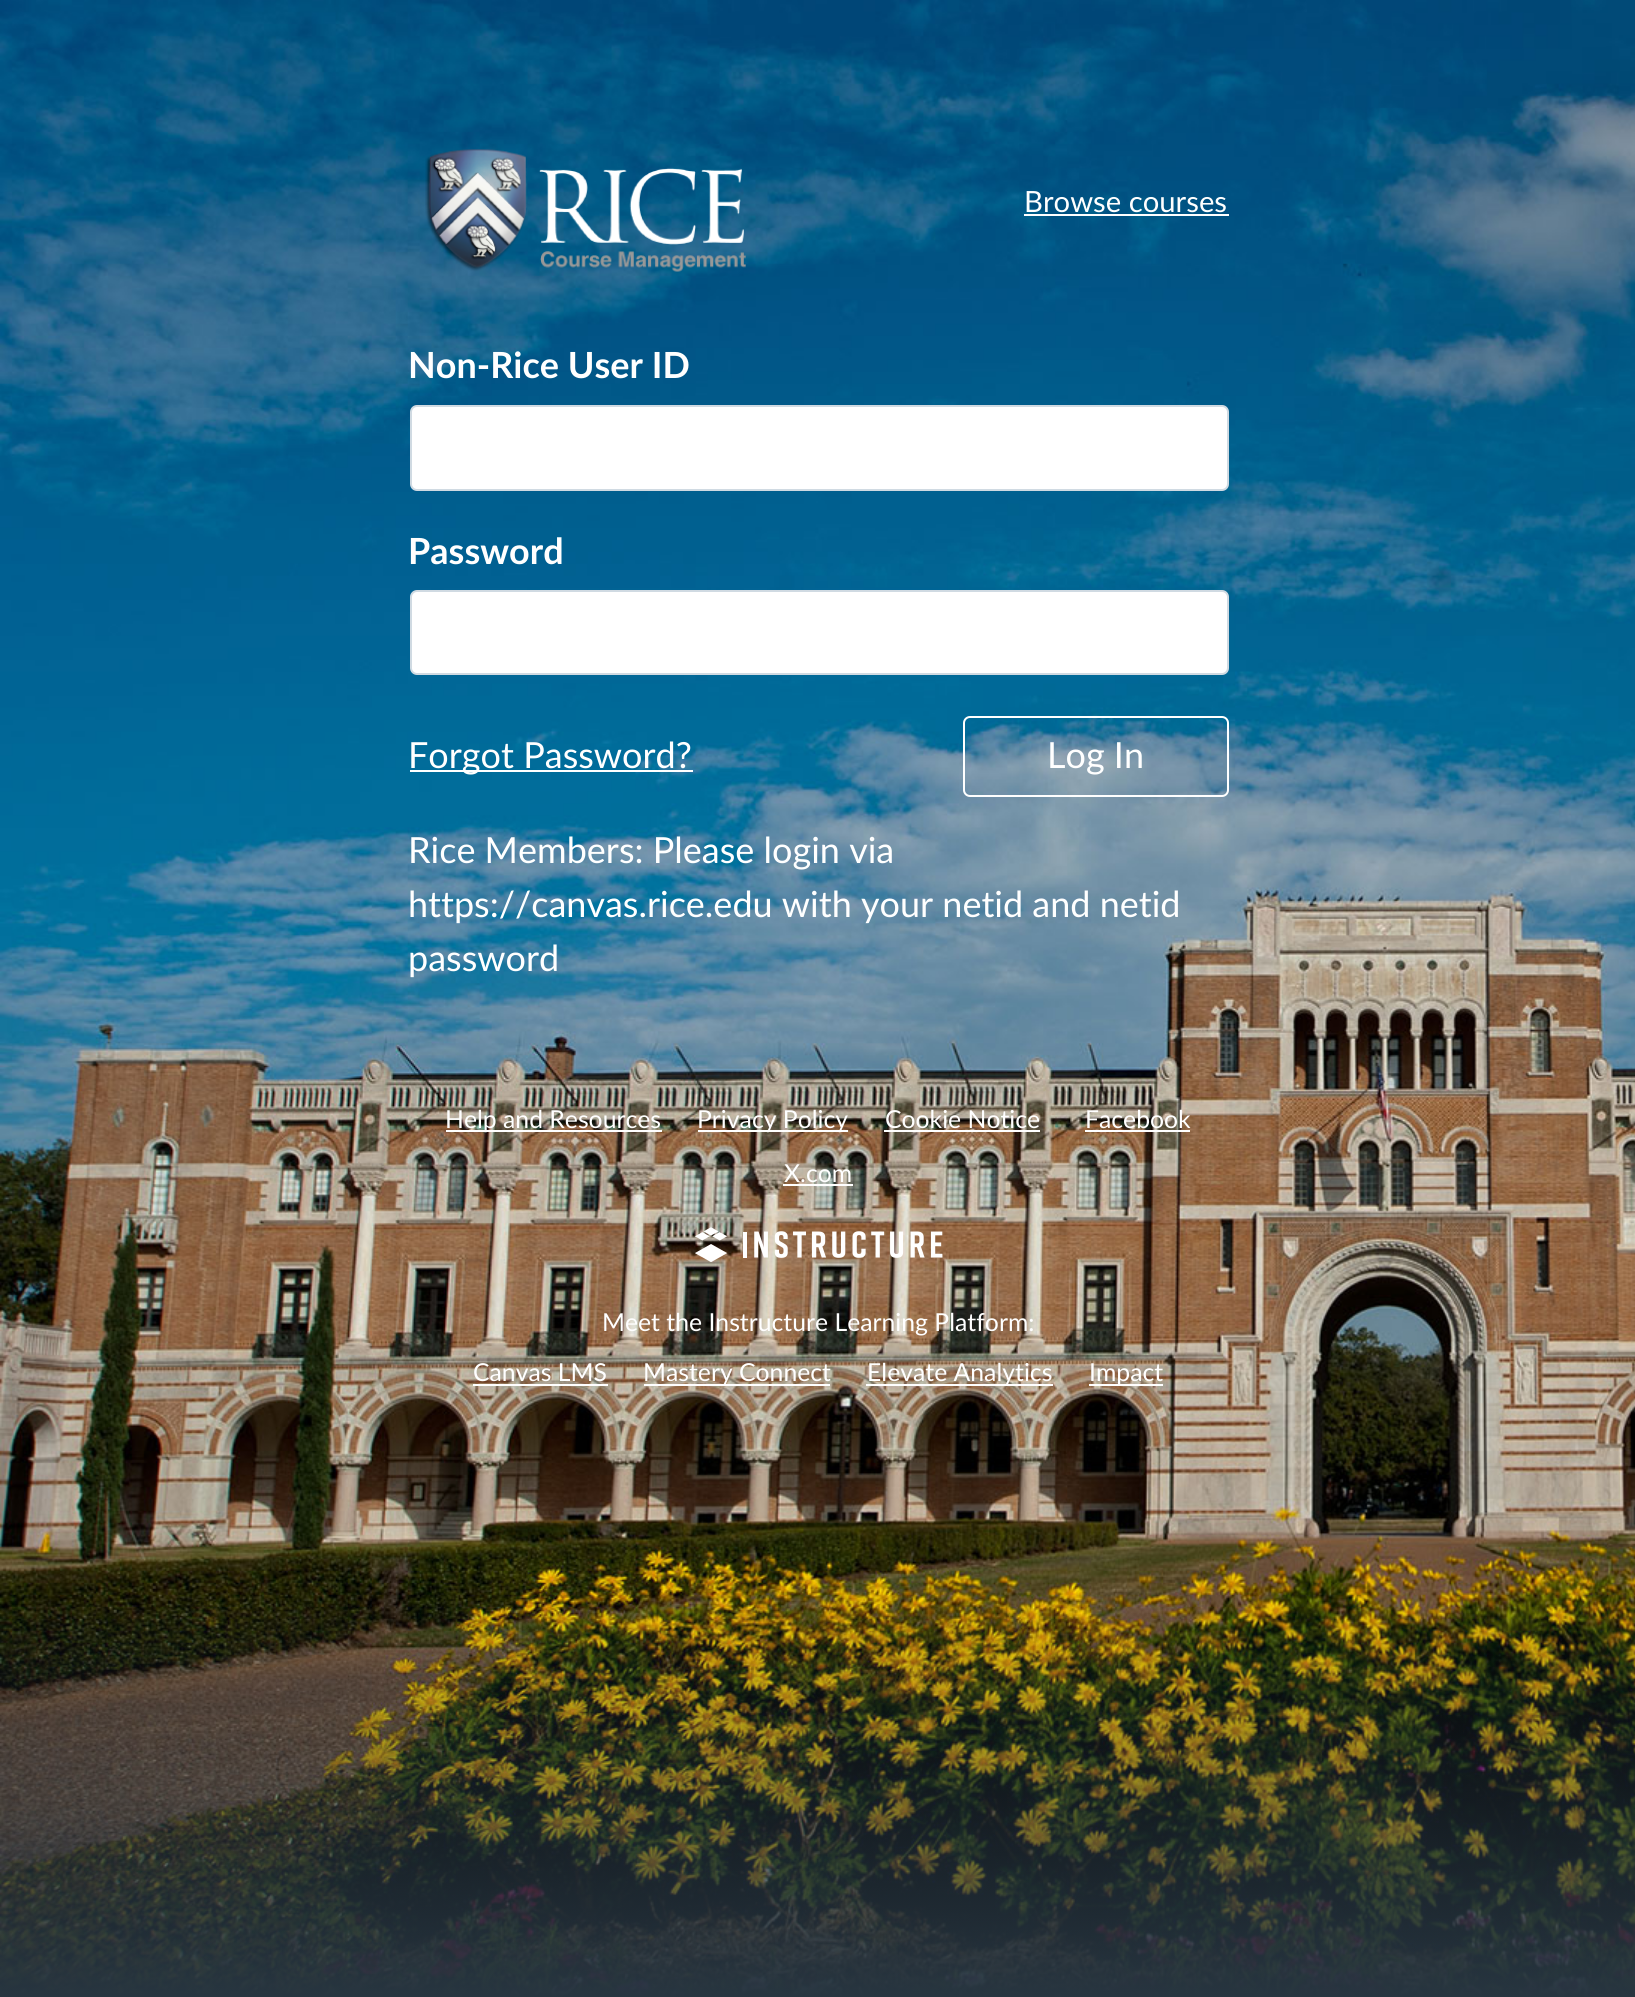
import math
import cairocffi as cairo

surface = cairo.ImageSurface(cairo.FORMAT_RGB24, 1635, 1997)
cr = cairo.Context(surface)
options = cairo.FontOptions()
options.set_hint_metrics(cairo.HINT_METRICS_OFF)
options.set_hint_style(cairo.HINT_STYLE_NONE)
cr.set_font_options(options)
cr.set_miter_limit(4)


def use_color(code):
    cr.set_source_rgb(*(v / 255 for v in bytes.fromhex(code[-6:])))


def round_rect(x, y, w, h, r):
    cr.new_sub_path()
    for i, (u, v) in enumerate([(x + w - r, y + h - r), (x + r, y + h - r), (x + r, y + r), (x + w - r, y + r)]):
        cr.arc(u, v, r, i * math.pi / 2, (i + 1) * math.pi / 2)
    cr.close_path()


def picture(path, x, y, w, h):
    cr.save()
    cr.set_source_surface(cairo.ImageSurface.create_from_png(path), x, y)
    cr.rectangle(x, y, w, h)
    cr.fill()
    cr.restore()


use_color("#ffffff")
cr.paint()
picture("img1.png", 0, 0, 1635, 1997)
picture("img2.png", 425, 149, 321, 123)
cr.select_font_face("Lato")
cr.set_font_size(29.25)
use_color("#ffffff")
cr.move_to(1024, 212)
cr.show_text("Browse courses")
cr.rectangle(1024, 214, 205, 2)
cr.fill()
cr.select_font_face("Lato", cairo.FONT_SLANT_NORMAL, cairo.FONT_WEIGHT_BOLD)
cr.set_font_size(36)
cr.move_to(408, 378)
cr.show_text("Non-Rice User ID")
round_rect(411, 406, 817, 84, 6)
cr.fill_preserve()
use_color("#d0dae2")
cr.stroke()
use_color("#ffffff")
cr.move_to(408, 564)
cr.show_text("Password")
round_rect(411, 591, 817, 83, 6)
cr.fill_preserve()
use_color("#d0dae2")
cr.stroke()
use_color("#ffffff")
cr.rectangle(410, 770, 283, 2)
cr.fill()
cr.select_font_face("Lato")
cr.move_to(408, 768)
cr.show_text("Forgot Password?")
round_rect(964, 717, 264, 79, 6)
cr.stroke()
cr.move_to(1047, 768)
cr.show_text("Log In")
cr.move_to(408, 863)
cr.show_text("Rice Members: Please login via")
cr.move_to(408, 917)
cr.show_text("https://canvas.rice.edu with your netid and netid")
cr.move_to(408, 971)
cr.show_text("password")
cr.rectangle(446, 1130, 216, 2)
cr.fill()
cr.set_font_size(24.75)
cr.move_to(445, 1128)
cr.show_text("Help and Resources")
cr.rectangle(698, 1130, 150, 2)
cr.fill()
cr.move_to(697, 1128)
cr.show_text("Privacy Policy")
cr.move_to(885, 1128)
cr.show_text("Cookie Notice")
cr.rectangle(884, 1130, 156, 2)
cr.fill()
cr.move_to(1085, 1128)
cr.show_text("Facebook")
cr.rectangle(1085, 1130, 105, 2)
cr.fill()
cr.move_to(784, 1182)
cr.show_text("X.com")
cr.rectangle(783, 1184, 70, 2)
cr.fill()
picture("img3.png", 695, 1227, 248, 35)
cr.move_to(602, 1331)
cr.show_text("Meet the Instructure Learning Platform:")
cr.move_to(473, 1381)
cr.show_text("Canvas LMS")
cr.rectangle(473, 1384, 135, 2)
cr.fill()
cr.rectangle(644, 1384, 186, 2)
cr.fill()
cr.move_to(643, 1381)
cr.show_text("Mastery Connect")
cr.rectangle(866, 1384, 187, 2)
cr.fill()
cr.move_to(867, 1381)
cr.show_text("Elevate Analytics")
cr.rectangle(1089, 1384, 74, 2)
cr.fill()
cr.move_to(1089, 1381)
cr.show_text("Impact")
surface.write_to_png("result.png")
